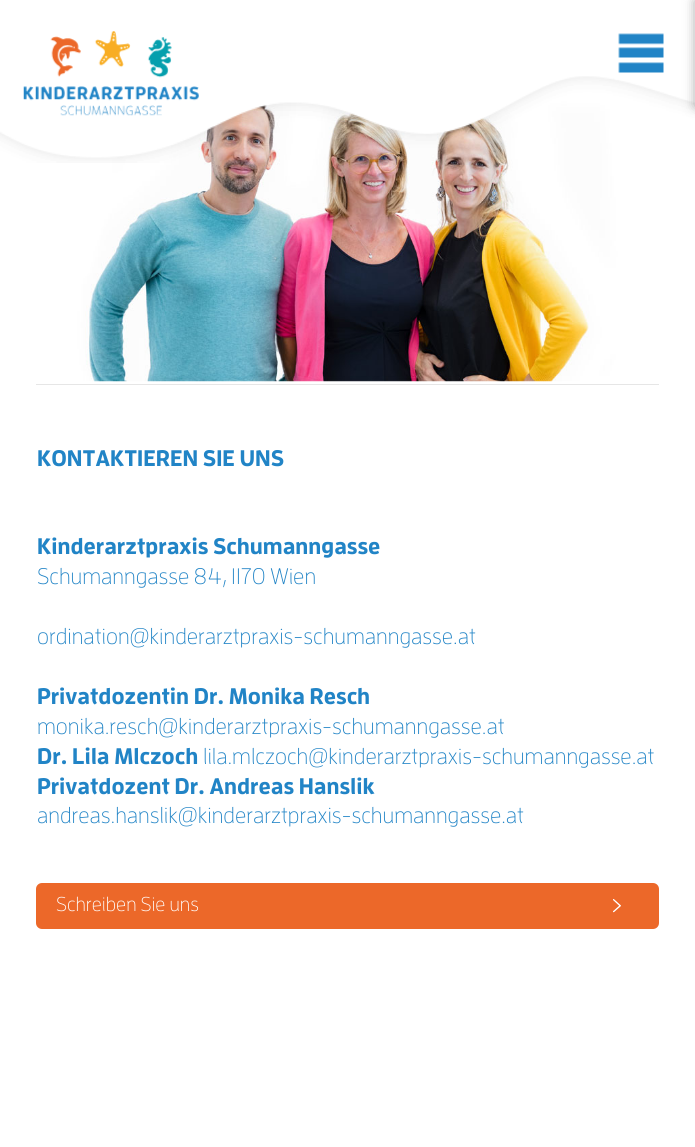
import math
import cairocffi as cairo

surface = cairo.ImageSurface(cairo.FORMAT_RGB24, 695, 1147)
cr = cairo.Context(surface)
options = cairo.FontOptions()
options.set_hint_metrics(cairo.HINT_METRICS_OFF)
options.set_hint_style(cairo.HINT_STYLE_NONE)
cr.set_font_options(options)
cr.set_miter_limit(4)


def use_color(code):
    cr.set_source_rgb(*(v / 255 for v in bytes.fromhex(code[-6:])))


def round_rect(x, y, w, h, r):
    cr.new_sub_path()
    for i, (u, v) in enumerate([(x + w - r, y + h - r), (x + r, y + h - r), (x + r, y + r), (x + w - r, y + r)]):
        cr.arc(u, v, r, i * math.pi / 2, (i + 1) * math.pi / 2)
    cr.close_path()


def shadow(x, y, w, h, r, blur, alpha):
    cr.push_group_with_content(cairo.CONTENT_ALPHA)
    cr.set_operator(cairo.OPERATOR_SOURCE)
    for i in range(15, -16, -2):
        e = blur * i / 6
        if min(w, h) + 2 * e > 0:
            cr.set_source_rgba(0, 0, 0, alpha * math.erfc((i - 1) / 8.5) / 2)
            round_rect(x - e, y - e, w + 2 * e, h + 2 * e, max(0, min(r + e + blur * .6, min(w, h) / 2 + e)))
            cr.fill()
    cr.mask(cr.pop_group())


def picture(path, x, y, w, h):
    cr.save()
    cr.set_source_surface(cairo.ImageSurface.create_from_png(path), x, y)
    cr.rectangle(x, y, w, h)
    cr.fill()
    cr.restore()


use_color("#ffffff")
cr.paint()
picture("img4.png", 36, 84, 623, 298)
picture("img1.png", 0, 76, 695, 87)
picture("img2.png", 23, 31, 176, 85)
picture("img3.png", 618, 33, 46, 40)
use_color("#000000")
shadow(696, 1, 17, 105, 0, 6, 0.4)
use_color("#e6e6e6")
cr.rectangle(36, 384, 623, 1)
cr.fill()
cr.select_font_face("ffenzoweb", cairo.FONT_SLANT_NORMAL, cairo.FONT_WEIGHT_BOLD)
cr.set_font_size(22.5)
use_color("#2184c6")
cr.move_to(37, 466)
cr.show_text("KONTAKTIEREN SIE UNS")
cr.move_to(37, 554)
cr.show_text("Kinderarztpraxis Schumanngasse")
cr.select_font_face("ffenzoweb")
cr.move_to(37, 584)
cr.show_text("Schumanngasse 84, 1170 Wien")
cr.move_to(37, 644)
cr.show_text("ordination@kinderarztpraxis-schumanngasse.at")
cr.select_font_face("ffenzoweb", cairo.FONT_SLANT_NORMAL, cairo.FONT_WEIGHT_BOLD)
cr.move_to(37, 704)
cr.show_text("Privatdozentin Dr. Monika Resch")
cr.select_font_face("ffenzoweb")
cr.move_to(37, 734)
cr.show_text("monika.resch@kinderarztpraxis-schumanngasse.at")
cr.select_font_face("ffenzoweb", cairo.FONT_SLANT_NORMAL, cairo.FONT_WEIGHT_BOLD)
cr.move_to(37, 764)
cr.show_text("Dr. Lila Mlczoch")
cr.select_font_face("ffenzoweb")
cr.move_to(203, 764)
cr.show_text("lila.mlczoch@kinderarztpraxis-schumanngasse.at")
cr.select_font_face("ffenzoweb", cairo.FONT_SLANT_NORMAL, cairo.FONT_WEIGHT_BOLD)
cr.move_to(37, 794)
cr.show_text("Privatdozent Dr. Andreas Hanslik")
cr.select_font_face("ffenzoweb")
cr.move_to(37, 823)
cr.show_text("andreas.hanslik@kinderarztpraxis-schumanngasse.at")
use_color("#ec6829")
round_rect(36, 883, 623, 46, 6)
cr.fill()
cr.set_font_size(20)
use_color("#ffffff")
cr.move_to(56, 911)
cr.show_text("Schreiben Sie uns")
picture("img5.png", 613, 899, 8, 14)
surface.write_to_png("result.png")
